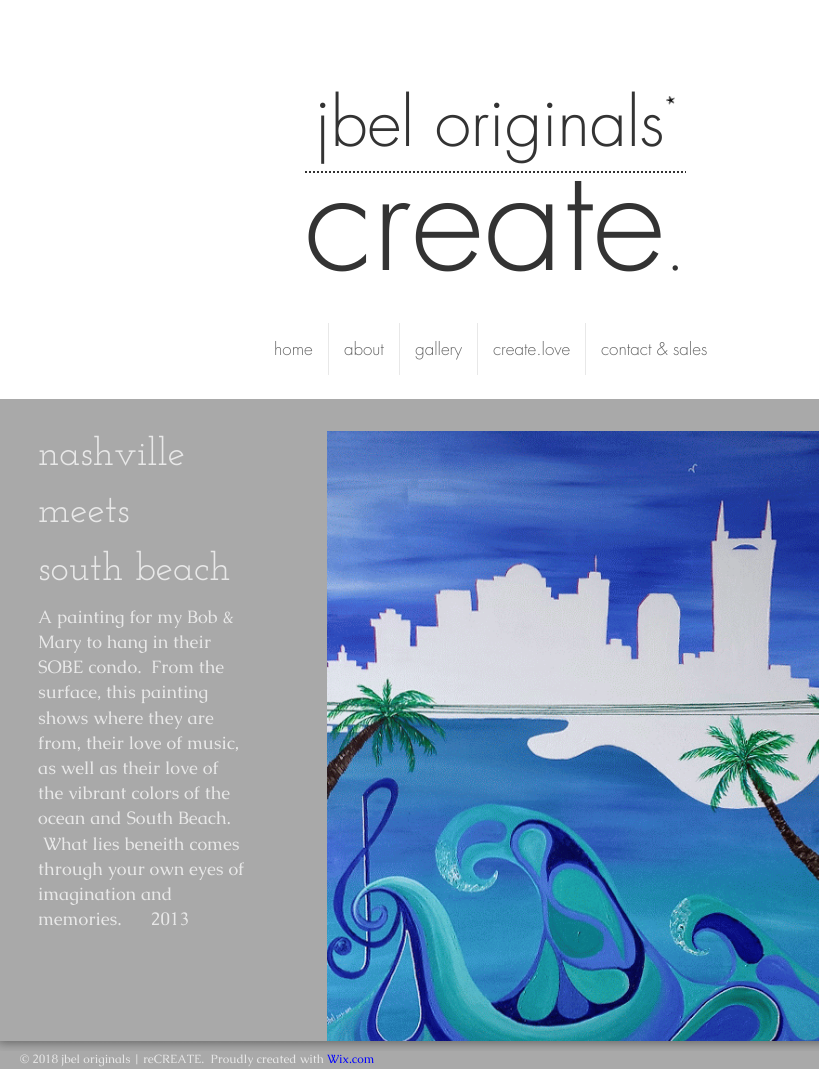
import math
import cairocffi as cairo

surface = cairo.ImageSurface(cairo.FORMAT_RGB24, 819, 1069)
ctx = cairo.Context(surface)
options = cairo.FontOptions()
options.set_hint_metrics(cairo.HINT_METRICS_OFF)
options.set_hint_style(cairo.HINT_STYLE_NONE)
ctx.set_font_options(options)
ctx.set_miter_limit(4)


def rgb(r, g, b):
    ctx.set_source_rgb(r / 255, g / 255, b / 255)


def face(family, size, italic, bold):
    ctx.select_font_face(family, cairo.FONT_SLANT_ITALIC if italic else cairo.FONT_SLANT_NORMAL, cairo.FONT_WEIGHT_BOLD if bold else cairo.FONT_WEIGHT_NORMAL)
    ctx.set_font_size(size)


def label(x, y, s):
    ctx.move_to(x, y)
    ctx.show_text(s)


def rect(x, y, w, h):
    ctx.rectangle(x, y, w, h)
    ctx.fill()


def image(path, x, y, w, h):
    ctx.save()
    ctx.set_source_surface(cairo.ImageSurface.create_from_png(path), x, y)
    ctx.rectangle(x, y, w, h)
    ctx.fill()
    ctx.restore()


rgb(169, 169, 169)
ctx.paint()
rgb(255, 255, 255)
rect(0, 0, 819, 399)
face('futura Light', 66, 0, 0)
rgb(51, 51, 51)
label(315, 146, 'jbel originals')
image('image0.png', 666, 96, 9, 9)
ctx.new_path()
ctx.move_to(305, 172)
ctx.line_to(686, 172)
ctx.set_dash([2, 2])
ctx.stroke()
face('futura Light', 142, 0, 0)
label(304, 270, 'create')
face('futura Light', 66, 0, 0)
label(665, 270, '.')
face('futura Light', 17, 0, 0)
rgb(102, 102, 102)
label(274, 355, 'home')
rgb(232, 232, 232)
rect(328, 323, 1, 52)
rgb(102, 102, 102)
label(344, 355, 'about')
rgb(232, 232, 232)
rect(399, 323, 1, 52)
rgb(102, 102, 102)
label(415, 355, 'gallery')
rgb(232, 232, 232)
rect(477, 323, 1, 52)
rgb(102, 102, 102)
label(493, 355, 'create.love')
rgb(232, 232, 232)
rect(585, 323, 1, 52)
rgb(102, 102, 102)
label(601, 355, 'contact & sales')
face('Josefin Slab', 39, 0, 0)
rgb(232, 232, 232)
label(38, 465, 'nashville')
label(38, 522, 'meets')
label(38, 580, 'south beach')
image('image1.png', 327, 431, 492, 610)
face('Caudex', 18, 0, 0)
label(38, 623, 'A painting for my Bob &')
label(38, 648, 'Mary to hang in their')
label(38, 673, 'SOBE condo.  From the')
label(38, 698, 'surface, this painting')
label(38, 724, 'shows where they are')
label(38, 749, 'from, their love of music,')
label(38, 774, 'as well as their love of')
label(38, 799, 'the vibrant colors of the')
label(38, 824, 'ocean and South Beach.')
label(43, 850, 'What lies beneith comes')
label(38, 875, 'through your own eyes of')
label(38, 900, 'imagination and')
label(38, 925, 'memories.      2013')
image('image2.png', 0, 1041, 35, 10)
image('image3.png', 35, 1041, 784, 10)
face('Caudex', 12, 0, 0)
label(20, 1063, '© 2018 jbel originals | reCREATE.  Proudly created with')
rgb(0, 0, 255)
label(327, 1063, 'Wix.com')
surface.write_to_png('render.png')
